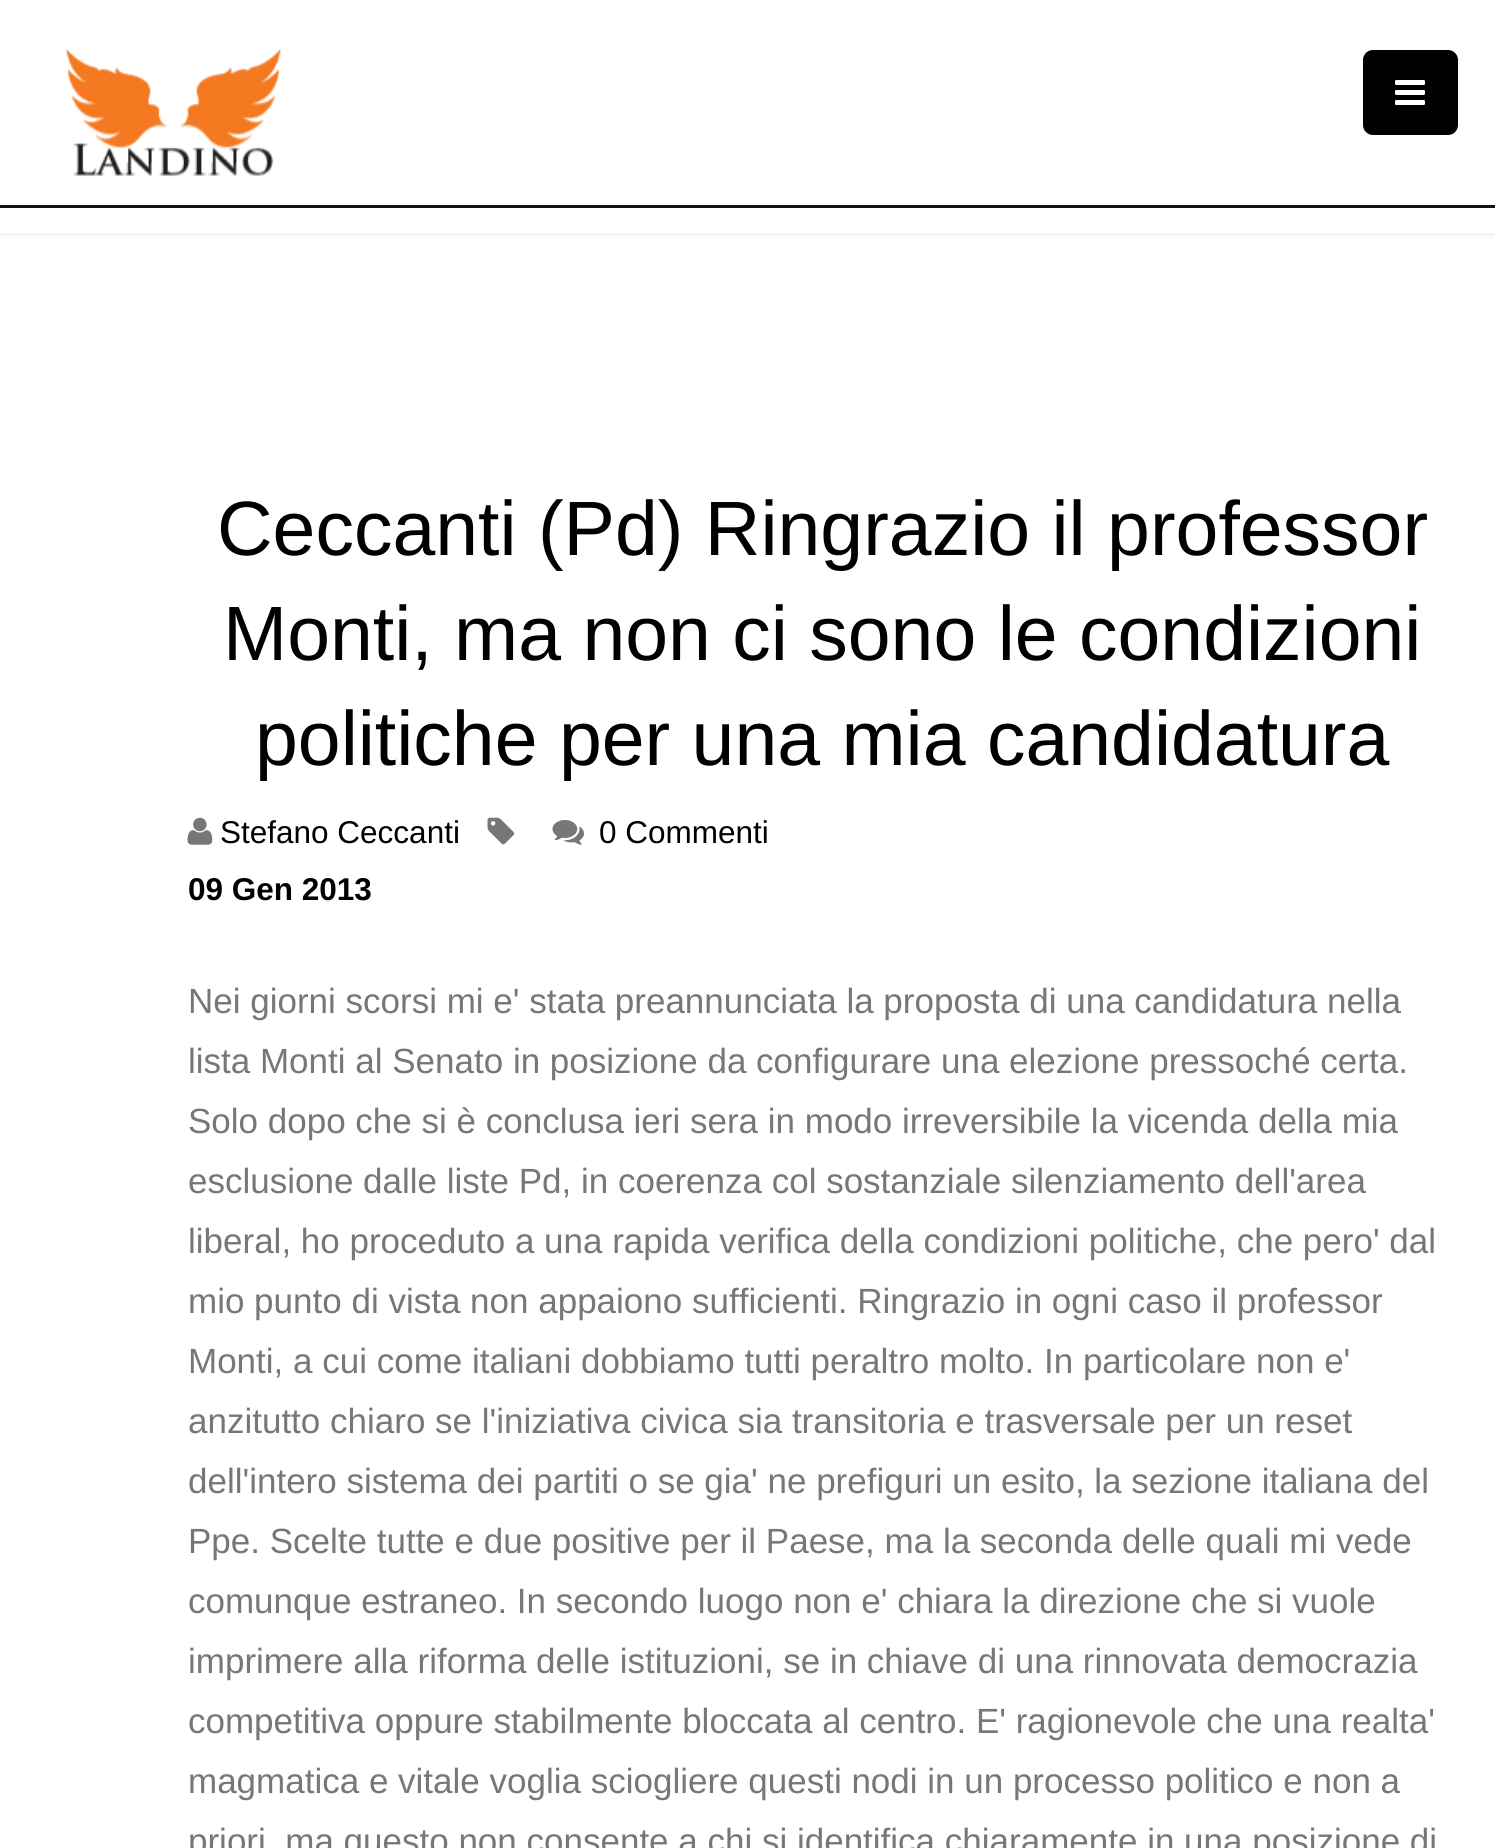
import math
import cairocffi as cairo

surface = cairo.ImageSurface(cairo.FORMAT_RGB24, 1495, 1848)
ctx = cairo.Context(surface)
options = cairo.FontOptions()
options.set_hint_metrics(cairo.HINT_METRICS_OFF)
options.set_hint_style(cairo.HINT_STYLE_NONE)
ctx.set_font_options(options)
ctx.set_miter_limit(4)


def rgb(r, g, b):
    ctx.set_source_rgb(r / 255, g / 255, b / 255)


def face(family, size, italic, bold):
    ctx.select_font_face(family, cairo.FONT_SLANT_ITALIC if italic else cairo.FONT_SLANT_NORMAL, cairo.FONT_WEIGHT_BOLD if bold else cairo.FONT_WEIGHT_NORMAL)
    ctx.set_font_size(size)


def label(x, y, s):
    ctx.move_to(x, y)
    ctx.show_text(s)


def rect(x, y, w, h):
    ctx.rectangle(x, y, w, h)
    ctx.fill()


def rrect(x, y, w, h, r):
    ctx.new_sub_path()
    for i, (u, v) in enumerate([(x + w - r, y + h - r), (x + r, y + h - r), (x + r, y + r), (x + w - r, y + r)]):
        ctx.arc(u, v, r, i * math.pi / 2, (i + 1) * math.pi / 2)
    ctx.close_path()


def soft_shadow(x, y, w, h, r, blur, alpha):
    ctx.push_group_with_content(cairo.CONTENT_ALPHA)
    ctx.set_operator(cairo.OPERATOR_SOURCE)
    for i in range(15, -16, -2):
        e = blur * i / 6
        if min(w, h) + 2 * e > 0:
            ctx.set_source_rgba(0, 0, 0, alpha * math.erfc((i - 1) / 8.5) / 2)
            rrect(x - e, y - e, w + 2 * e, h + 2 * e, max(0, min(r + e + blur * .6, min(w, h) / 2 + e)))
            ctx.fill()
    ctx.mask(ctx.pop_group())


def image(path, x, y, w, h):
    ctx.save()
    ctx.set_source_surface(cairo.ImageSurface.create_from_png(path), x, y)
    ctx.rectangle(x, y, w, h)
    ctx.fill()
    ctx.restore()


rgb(255, 255, 255)
ctx.paint()
rgb(0, 0, 0)
soft_shadow(0, 0, 1495, 233, 0, 4, 0.1)
rgb(255, 255, 255)
rect(0, 0, 1495, 233)
rgb(18, 18, 18)
rect(0, 205, 1495, 3)
image('image0.png', 66, 49, 215, 128)
rgb(0, 0, 0)
rrect(1363, 50, 95, 85, 10)
ctx.fill()
image('image1.png', 1395, 80, 30, 25)
face('Liberation Sans', 77, 0, 0)
label(217, 555, 'Ceccanti (Pd) Ringrazio il professor')
label(223, 660, 'Monti, ma non ci sono le condizioni')
label(255, 765, 'politiche per una mia candidatura')
image('image2.png', 187, 817, 26, 28)
face('Liberation Sans', 31.5, 0, 0)
label(220, 843, 'Stefano Ceccanti')
image('image3.png', 487, 817, 28, 28)
image('image4.png', 552, 820, 32, 25)
label(599, 843, '0 Commenti')
face('Liberation Sans', 31.5, 0, 1)
label(188, 900, '09 Gen 2013')
face('Liberation Sans', 35, 0, 0)
rgb(119, 119, 119)
label(188, 1013, 'Nei giorni scorsi mi e\' stata preannunciata la proposta di una candidatura nella')
label(188, 1073, 'lista Monti al Senato in posizione da configurare una elezione pressoché certa.')
label(188, 1133, 'Solo dopo che si è conclusa ieri sera in modo irreversibile la vicenda della mia')
label(188, 1193, 'esclusione dalle liste Pd, in coerenza col sostanziale silenziamento dell\'area')
label(188, 1253, 'liberal, ho proceduto a una rapida verifica della condizioni politiche, che pero\' dal')
label(188, 1313, 'mio punto di vista non appaiono sufficienti. Ringrazio in ogni caso il professor')
label(188, 1373, 'Monti, a cui come italiani dobbiamo tutti peraltro molto. In particolare non e\'')
label(188, 1433, 'anzitutto chiaro se l\'iniziativa civica sia transitoria e trasversale per un reset')
label(188, 1493, 'dell\'intero sistema dei partiti o se gia\' ne prefiguri un esito, la sezione italiana del')
label(188, 1553, 'Ppe. Scelte tutte e due positive per il Paese, ma la seconda delle quali mi vede')
label(188, 1613, 'comunque estraneo. In secondo luogo non e\' chiara la direzione che si vuole')
label(188, 1673, 'imprimere alla riforma delle istituzioni, se in chiave di una rinnovata democrazia')
label(188, 1733, 'competitiva oppure stabilmente bloccata al centro. E\' ragionevole che una realta\'')
label(188, 1793, 'magmatica e vitale voglia sciogliere questi nodi in un processo politico e non a')
label(188, 1853, 'priori, ma questo non consente a chi si identifica chiaramente in una posizione di')
surface.write_to_png('render.png')
